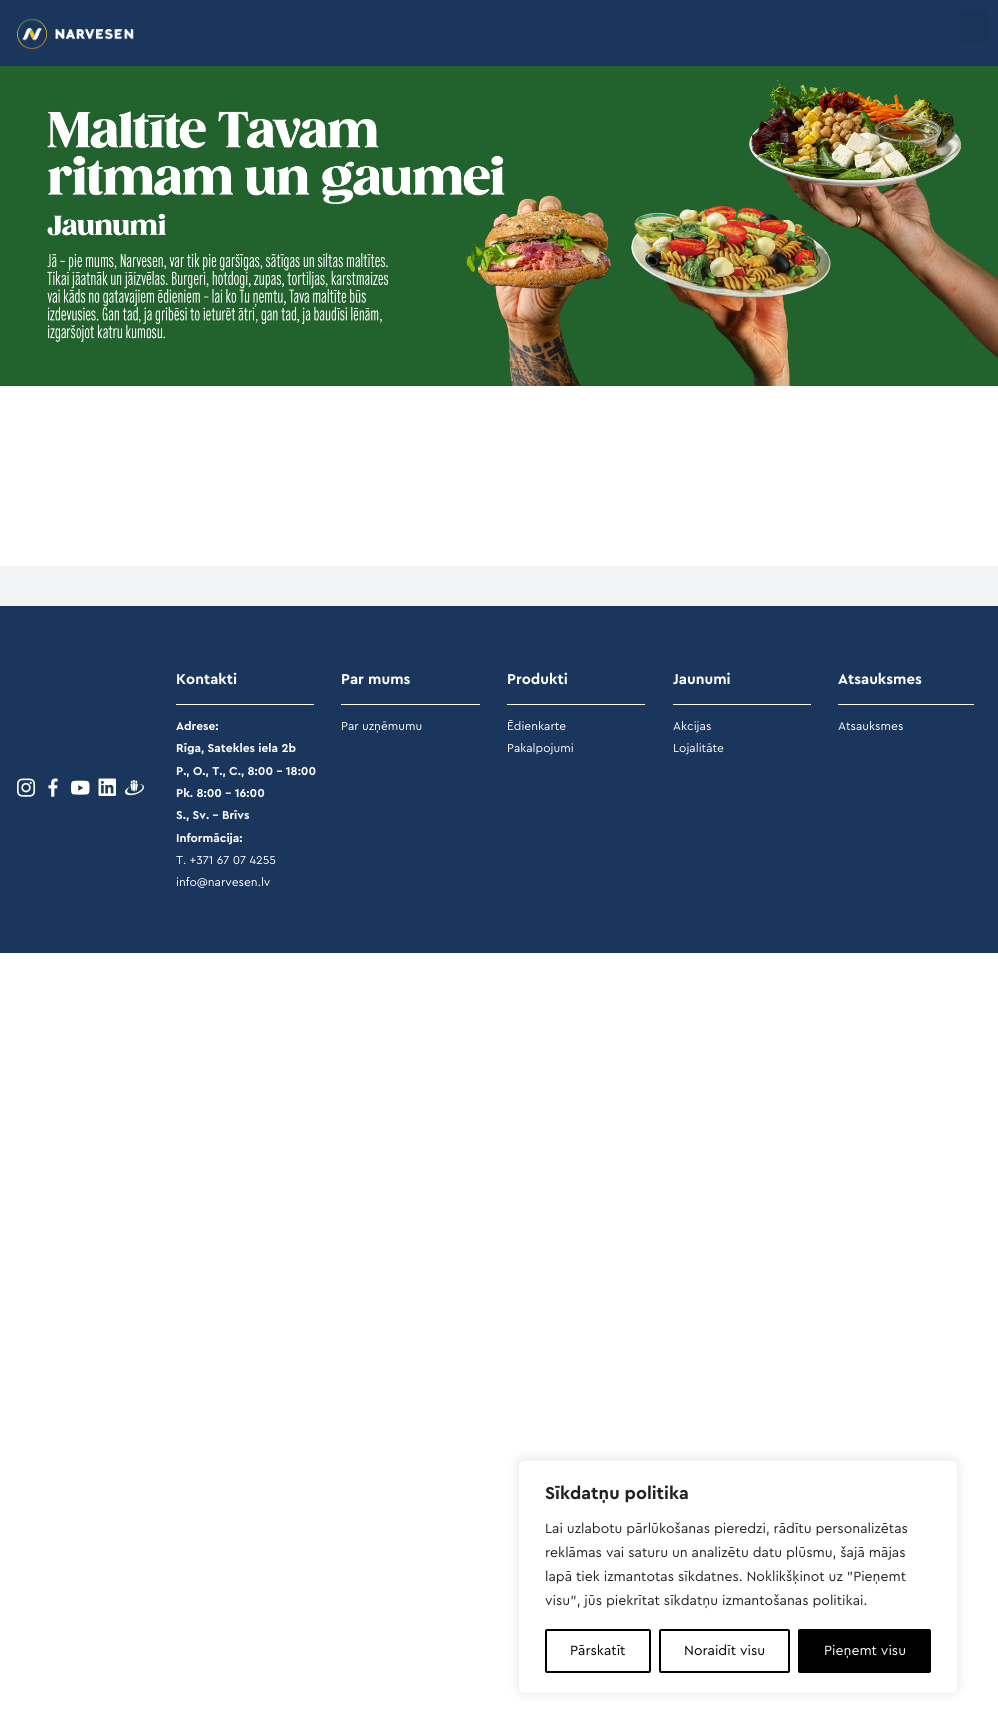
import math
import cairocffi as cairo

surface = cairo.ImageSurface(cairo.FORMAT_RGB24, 998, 1734)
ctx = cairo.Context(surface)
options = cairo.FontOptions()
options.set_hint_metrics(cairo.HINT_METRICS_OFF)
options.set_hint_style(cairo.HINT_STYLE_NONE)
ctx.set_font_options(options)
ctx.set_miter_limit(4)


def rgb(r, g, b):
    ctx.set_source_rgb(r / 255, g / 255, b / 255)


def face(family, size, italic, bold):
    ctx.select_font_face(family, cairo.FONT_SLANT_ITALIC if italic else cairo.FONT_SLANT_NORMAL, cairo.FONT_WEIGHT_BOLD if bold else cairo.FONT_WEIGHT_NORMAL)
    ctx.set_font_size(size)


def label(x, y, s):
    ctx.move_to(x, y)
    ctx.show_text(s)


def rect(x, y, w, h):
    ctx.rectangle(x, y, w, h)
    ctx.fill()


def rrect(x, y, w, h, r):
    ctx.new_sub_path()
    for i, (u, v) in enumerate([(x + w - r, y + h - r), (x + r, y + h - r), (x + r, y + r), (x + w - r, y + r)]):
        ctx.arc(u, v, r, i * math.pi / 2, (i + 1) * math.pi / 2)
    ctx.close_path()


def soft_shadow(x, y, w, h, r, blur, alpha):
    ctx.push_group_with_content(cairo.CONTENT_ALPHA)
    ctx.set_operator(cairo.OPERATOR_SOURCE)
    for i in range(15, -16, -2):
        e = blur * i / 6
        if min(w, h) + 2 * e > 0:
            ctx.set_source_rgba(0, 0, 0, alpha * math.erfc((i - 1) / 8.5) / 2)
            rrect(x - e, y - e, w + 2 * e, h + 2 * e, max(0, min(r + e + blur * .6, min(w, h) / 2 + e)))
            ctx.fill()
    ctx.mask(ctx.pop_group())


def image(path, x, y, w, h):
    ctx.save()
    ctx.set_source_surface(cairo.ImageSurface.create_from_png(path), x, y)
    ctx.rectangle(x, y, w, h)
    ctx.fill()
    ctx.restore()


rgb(255, 255, 255)
ctx.paint()
rgb(27, 54, 93)
rect(0, 0, 998, 66)
image('image0.png', 17, 18, 117, 31)
rgb(26, 51, 88)
rrect(960, 10, 28, 33, 3)
ctx.fill()
image('image1.png', 0, 66, 998, 320)
rgb(242, 244, 246)
rect(0, 566, 998, 40)
rgb(27, 54, 93)
rect(0, 606, 998, 347)
face('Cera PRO', 15, 0, 1)
rgb(255, 255, 255)
label(176, 684, 'Kontakti')
rect(176, 704, 138, 1)
face('Cera PRO', 12, 0, 1)
label(176, 730, 'Adrese:')
label(176, 752, 'Rīga, Satekles iela 2b')
label(176, 775, 'P., O., T., C., 8:00 – 18:00')
label(176, 797, 'Pk. 8:00 – 16:00')
label(176, 819, 'S., Sv. – Brīvs')
label(176, 842, 'Informācija:')
face('Cera PRO', 12, 0, 0)
label(176, 864, 'T. +371 67 07 4255')
label(176, 886, 'info@narvesen.lv')
face('Cera PRO', 15, 0, 1)
label(341, 684, 'Par mums')
rect(341, 704, 139, 1)
face('Cera PRO', 12, 0, 0)
label(341, 730, 'Par uzņēmumu')
face('Cera PRO', 15, 0, 1)
label(507, 684, 'Produkti')
rect(507, 704, 138, 1)
face('Cera PRO', 12, 0, 0)
label(507, 730, 'Ēdienkarte')
label(507, 752, 'Pakalpojumi')
face('Cera PRO', 15, 0, 1)
label(673, 684, 'Jaunumi')
rect(673, 704, 138, 1)
face('Cera PRO', 12, 0, 0)
label(673, 730, 'Akcijas')
label(673, 752, 'Lojalitāte')
face('Cera PRO', 15, 0, 1)
label(838, 684, 'Atsauksmes')
rect(838, 704, 136, 1)
face('Cera PRO', 12, 0, 0)
label(838, 730, 'Atsauksmes')
image('image2.png', 17, 778, 19, 19)
image('image3.png', 48, 778, 10, 19)
image('image4.png', 71, 780, 19, 15)
image('image5.png', 98, 778, 18, 18)
image('image6.png', 125, 779, 19, 17)
rgb(172, 171, 171)
soft_shadow(518, 1459, 440, 234, 6, 5, 0.3)
rgb(255, 255, 255)
rrect(518.5, 1460.5, 439, 233, 5.5)
ctx.fill_preserve()
rgb(244, 244, 244)
ctx.set_line_width(1)
ctx.stroke()
face('Cera PRO', 18, 0, 1)
rgb(33, 33, 33)
label(545, 1499, 'Sīkdatņu politika')
face('Cera PRO', 14, 0, 0)
label(545, 1533, 'Lai uzlabotu pārlūkošanas pieredzi, rādītu personalizētas')
label(545, 1557, 'reklāmas vai saturu un analizētu datu plūsmu, šajā mājas')
label(545, 1581, 'lapā tiek izmantotas sīkdatnes. Noklikšķinot uz "Pieņemt')
label(545, 1605, 'visu", jūs piekrītat sīkdatņu izmantošanas politikai.')
rrect(546, 1630, 104, 42, 1)
rgb(0, 0, 0)
ctx.set_line_width(2)
ctx.stroke()
label(570, 1655, 'Pārskatīt')
rrect(660, 1630, 129, 42, 1)
ctx.stroke()
label(684, 1655, 'Noraidīt visu')
rrect(799, 1630, 131, 42, 1)
ctx.fill_preserve()
ctx.stroke()
rgb(255, 255, 255)
label(824, 1655, 'Pieņemt visu')
surface.write_to_png('render.png')
